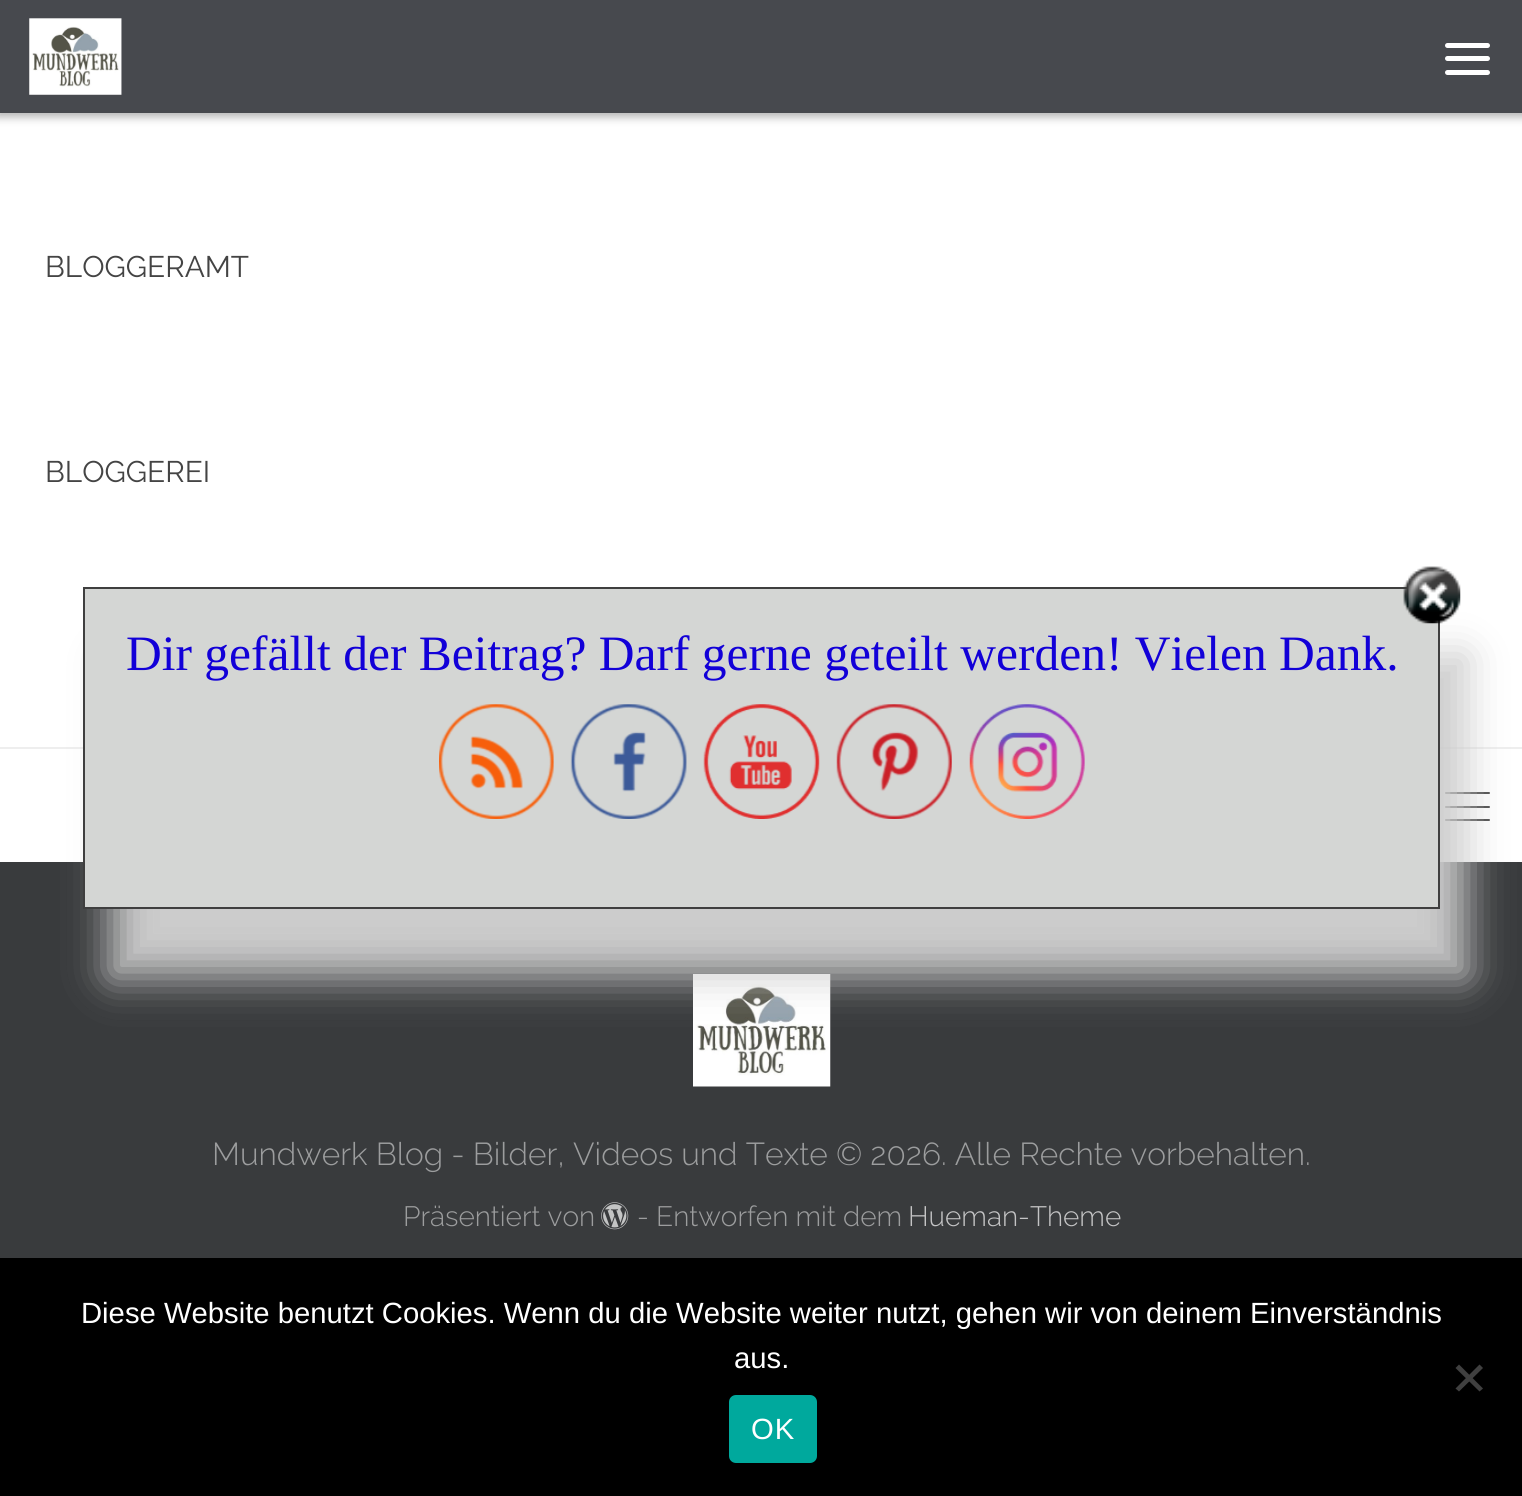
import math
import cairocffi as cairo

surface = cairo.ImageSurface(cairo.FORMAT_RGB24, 1522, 1496)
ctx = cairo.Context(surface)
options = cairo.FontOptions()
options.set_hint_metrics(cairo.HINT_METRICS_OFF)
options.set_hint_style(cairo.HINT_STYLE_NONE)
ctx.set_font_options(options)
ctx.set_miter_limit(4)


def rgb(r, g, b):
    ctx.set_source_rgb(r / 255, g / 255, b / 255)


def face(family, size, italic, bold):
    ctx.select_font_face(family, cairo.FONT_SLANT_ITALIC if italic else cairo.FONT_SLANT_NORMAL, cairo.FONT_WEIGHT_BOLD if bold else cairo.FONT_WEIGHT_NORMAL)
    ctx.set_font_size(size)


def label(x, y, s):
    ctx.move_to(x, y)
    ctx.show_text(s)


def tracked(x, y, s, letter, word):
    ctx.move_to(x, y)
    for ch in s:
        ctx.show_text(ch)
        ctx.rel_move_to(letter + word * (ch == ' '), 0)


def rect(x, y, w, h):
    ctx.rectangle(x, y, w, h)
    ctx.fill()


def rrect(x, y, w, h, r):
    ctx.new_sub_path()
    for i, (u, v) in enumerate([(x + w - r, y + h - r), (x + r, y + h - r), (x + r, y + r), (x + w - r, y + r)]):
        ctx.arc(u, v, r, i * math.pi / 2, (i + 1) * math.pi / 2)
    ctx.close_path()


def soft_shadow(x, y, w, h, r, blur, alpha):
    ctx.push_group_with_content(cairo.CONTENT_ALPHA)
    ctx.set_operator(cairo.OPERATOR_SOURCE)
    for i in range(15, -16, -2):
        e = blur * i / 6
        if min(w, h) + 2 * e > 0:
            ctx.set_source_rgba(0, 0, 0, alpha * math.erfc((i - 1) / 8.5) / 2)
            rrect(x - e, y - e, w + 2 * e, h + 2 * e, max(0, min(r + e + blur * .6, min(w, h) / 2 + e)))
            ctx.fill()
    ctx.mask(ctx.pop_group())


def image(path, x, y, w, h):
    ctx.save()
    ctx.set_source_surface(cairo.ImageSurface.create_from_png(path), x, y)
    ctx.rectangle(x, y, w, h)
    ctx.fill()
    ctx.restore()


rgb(255, 255, 255)
ctx.paint()
ctx.save()
ctx.set_fill_rule(cairo.FILL_RULE_EVEN_ODD)
ctx.new_path()
ctx.move_to(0, 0)
ctx.line_to(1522, 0)
ctx.line_to(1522, 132)
ctx.line_to(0, 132)
ctx.close_path()
ctx.move_to(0, 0)
ctx.line_to(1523, 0)
ctx.line_to(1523, 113)
ctx.line_to(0, 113)
ctx.close_path()
ctx.clip()
rgb(0, 0, 0)
soft_shadow(-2, 0, 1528, 117, 0, 4.5, 0.3)
ctx.restore()
ctx.set_source_rgba(0.2, 0.212, 0.231, 0.9)
rect(0, 0, 1522, 113)
image('image0.png', 29, 18, 93, 77)
rgb(255, 255, 255)
rrect(1445, 43, 45, 5, 2.5)
ctx.fill()
rrect(1445, 56, 45, 5, 2.5)
ctx.fill()
rrect(1445, 70, 45, 5, 2.5)
ctx.fill()
face('Raleway', 29.75, 0, 0)
rgb(68, 68, 68)
label(45, 277, 'BLOGGERAMT')
label(45, 482, 'BLOGGEREI')
rgb(238, 238, 238)
rect(0, 747, 1522, 2)
rgb(68, 68, 68)
rrect(1445, 792, 45, 2, 1)
ctx.fill()
rrect(1445, 806, 45, 2, 1)
ctx.fill()
rrect(1445, 819, 45, 2, 1)
ctx.fill()
rgb(57, 59, 61)
rect(0, 862, 1522, 396)
image('image1.png', 693, 974, 138, 113)
face('Raleway Light', 31.7, 0, 0)
rgb(156, 157, 158)
label(212, 1165, 'Mundwerk Blog - Bilder, Videos und Texte © 2026. Alle Rechte vorbehalten.')
face('Raleway Light', 28, 0, 0)
label(403, 1226, 'Präsentiert von')
image('image2.png', 601, 1202, 28, 28)
label(637, 1226, '- Entworfen mit dem')
rgb(196, 196, 197)
label(908, 1226, 'Hueman-Theme')
rgb(204, 204, 204)
soft_shadow(110, 655, 1357, 322, 0, 20, 1)
rgb(212, 214, 212)
ctx.rectangle(84, 588, 1355, 320)
ctx.fill_preserve()
rgb(63, 63, 63)
ctx.stroke()
image('image3.png', 1403, 566, 58, 58)
face('Liberation Serif', 49.5, 0, 0)
rgb(18, 0, 216)
label(126, 670, 'Dir gefällt der Beitrag? Darf gerne geteilt werden! Vielen Dank.')
image('image4.png', 439, 704, 115, 115)
image('image5.png', 570, 704, 117, 115)
image('image6.png', 703, 704, 117, 115)
image('image7.png', 836, 704, 116, 115)
image('image8.png', 969, 704, 116, 115)
rgb(0, 0, 0)
rect(0, 1258, 1522, 238)
face('Liberation Sans', 29.25, 0, 0)
rgb(255, 255, 255)
label(81, 1323, 'Diese Website benutzt Cookies. Wenn du die Website weiter nutzt, gehen wir von deinem Einverständnis')
label(734, 1368, 'aus.')
rgb(64, 64, 64)
ctx.new_path()
ctx.move_to(1479.5, 1364.5)
ctx.line_to(1483, 1368)
ctx.line_to(1459, 1391.5)
ctx.line_to(1455.5, 1388.5)
ctx.close_path()
ctx.fill()
ctx.new_path()
ctx.move_to(1455.5, 1368)
ctx.line_to(1459, 1364.5)
ctx.line_to(1483, 1388.5)
ctx.line_to(1479.5, 1391.5)
ctx.close_path()
ctx.fill()
rgb(0, 169, 157)
rrect(729, 1395, 88, 68, 7)
ctx.fill()
rgb(255, 255, 255)
tracked(751, 1439, 'OK', 1, 0)
surface.write_to_png('render.png')
